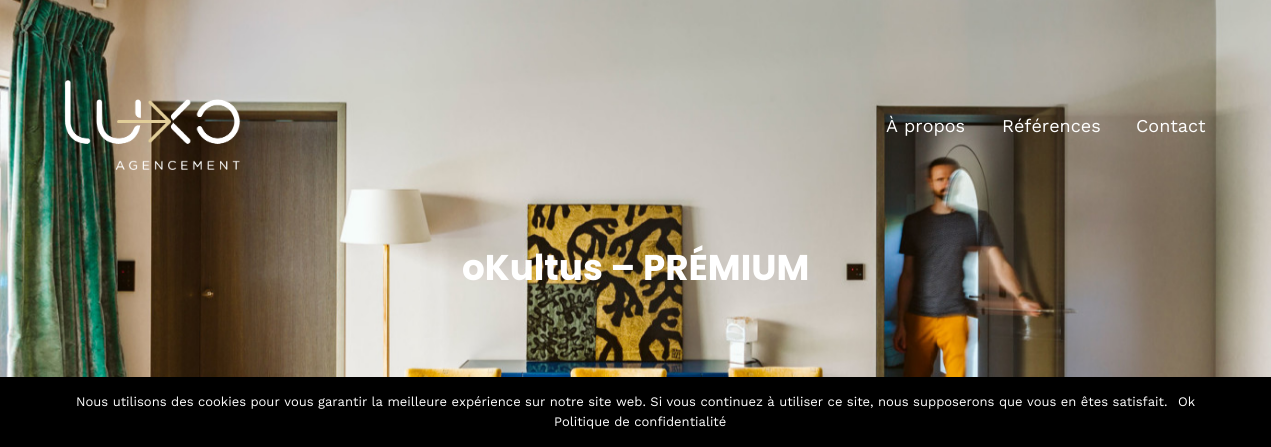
import math
import cairocffi as cairo

surface = cairo.ImageSurface(cairo.FORMAT_RGB24, 1271, 447)
ctx = cairo.Context(surface)
options = cairo.FontOptions()
options.set_hint_metrics(cairo.HINT_METRICS_OFF)
options.set_hint_style(cairo.HINT_STYLE_NONE)
ctx.set_font_options(options)
ctx.set_miter_limit(4)


def rgb(r, g, b):
    ctx.set_source_rgb(r / 255, g / 255, b / 255)


def face(family, size, italic, bold):
    ctx.select_font_face(family, cairo.FONT_SLANT_ITALIC if italic else cairo.FONT_SLANT_NORMAL, cairo.FONT_WEIGHT_BOLD if bold else cairo.FONT_WEIGHT_NORMAL)
    ctx.set_font_size(size)


def label(x, y, s):
    ctx.move_to(x, y)
    ctx.show_text(s)


def rect(x, y, w, h):
    ctx.rectangle(x, y, w, h)
    ctx.fill()


def image(path, x, y, w, h):
    ctx.save()
    ctx.set_source_surface(cairo.ImageSurface.create_from_png(path), x, y)
    ctx.rectangle(x, y, w, h)
    ctx.fill()
    ctx.restore()


rgb(255, 255, 255)
ctx.paint()
image('image0.png', 0, 0, 1271, 377)
image('image1.png', 65, 80, 175, 90)
face('Work Sans', 18, 0, 0)
rgb(255, 255, 255)
label(886, 132, 'À propos')
label(1002, 132, 'Références')
label(1136, 132, 'Contact')
face('Poppins', 35.75, 0, 1)
label(462, 280, 'oKultus – PRÉMIUM')
rgb(0, 0, 0)
rect(0, 377, 1271, 70)
face('Work Sans', 13, 0, 0)
rgb(255, 255, 255)
label(76, 406, 'Nous utilisons des cookies pour vous garantir la meilleure expérience sur notre site web. Si vous continuez à utiliser ce site, nous supposerons que vous en êtes satisfait.')
label(1178, 406, 'Ok')
label(554, 426, 'Politique de confidentialité')
surface.write_to_png('render.png')
